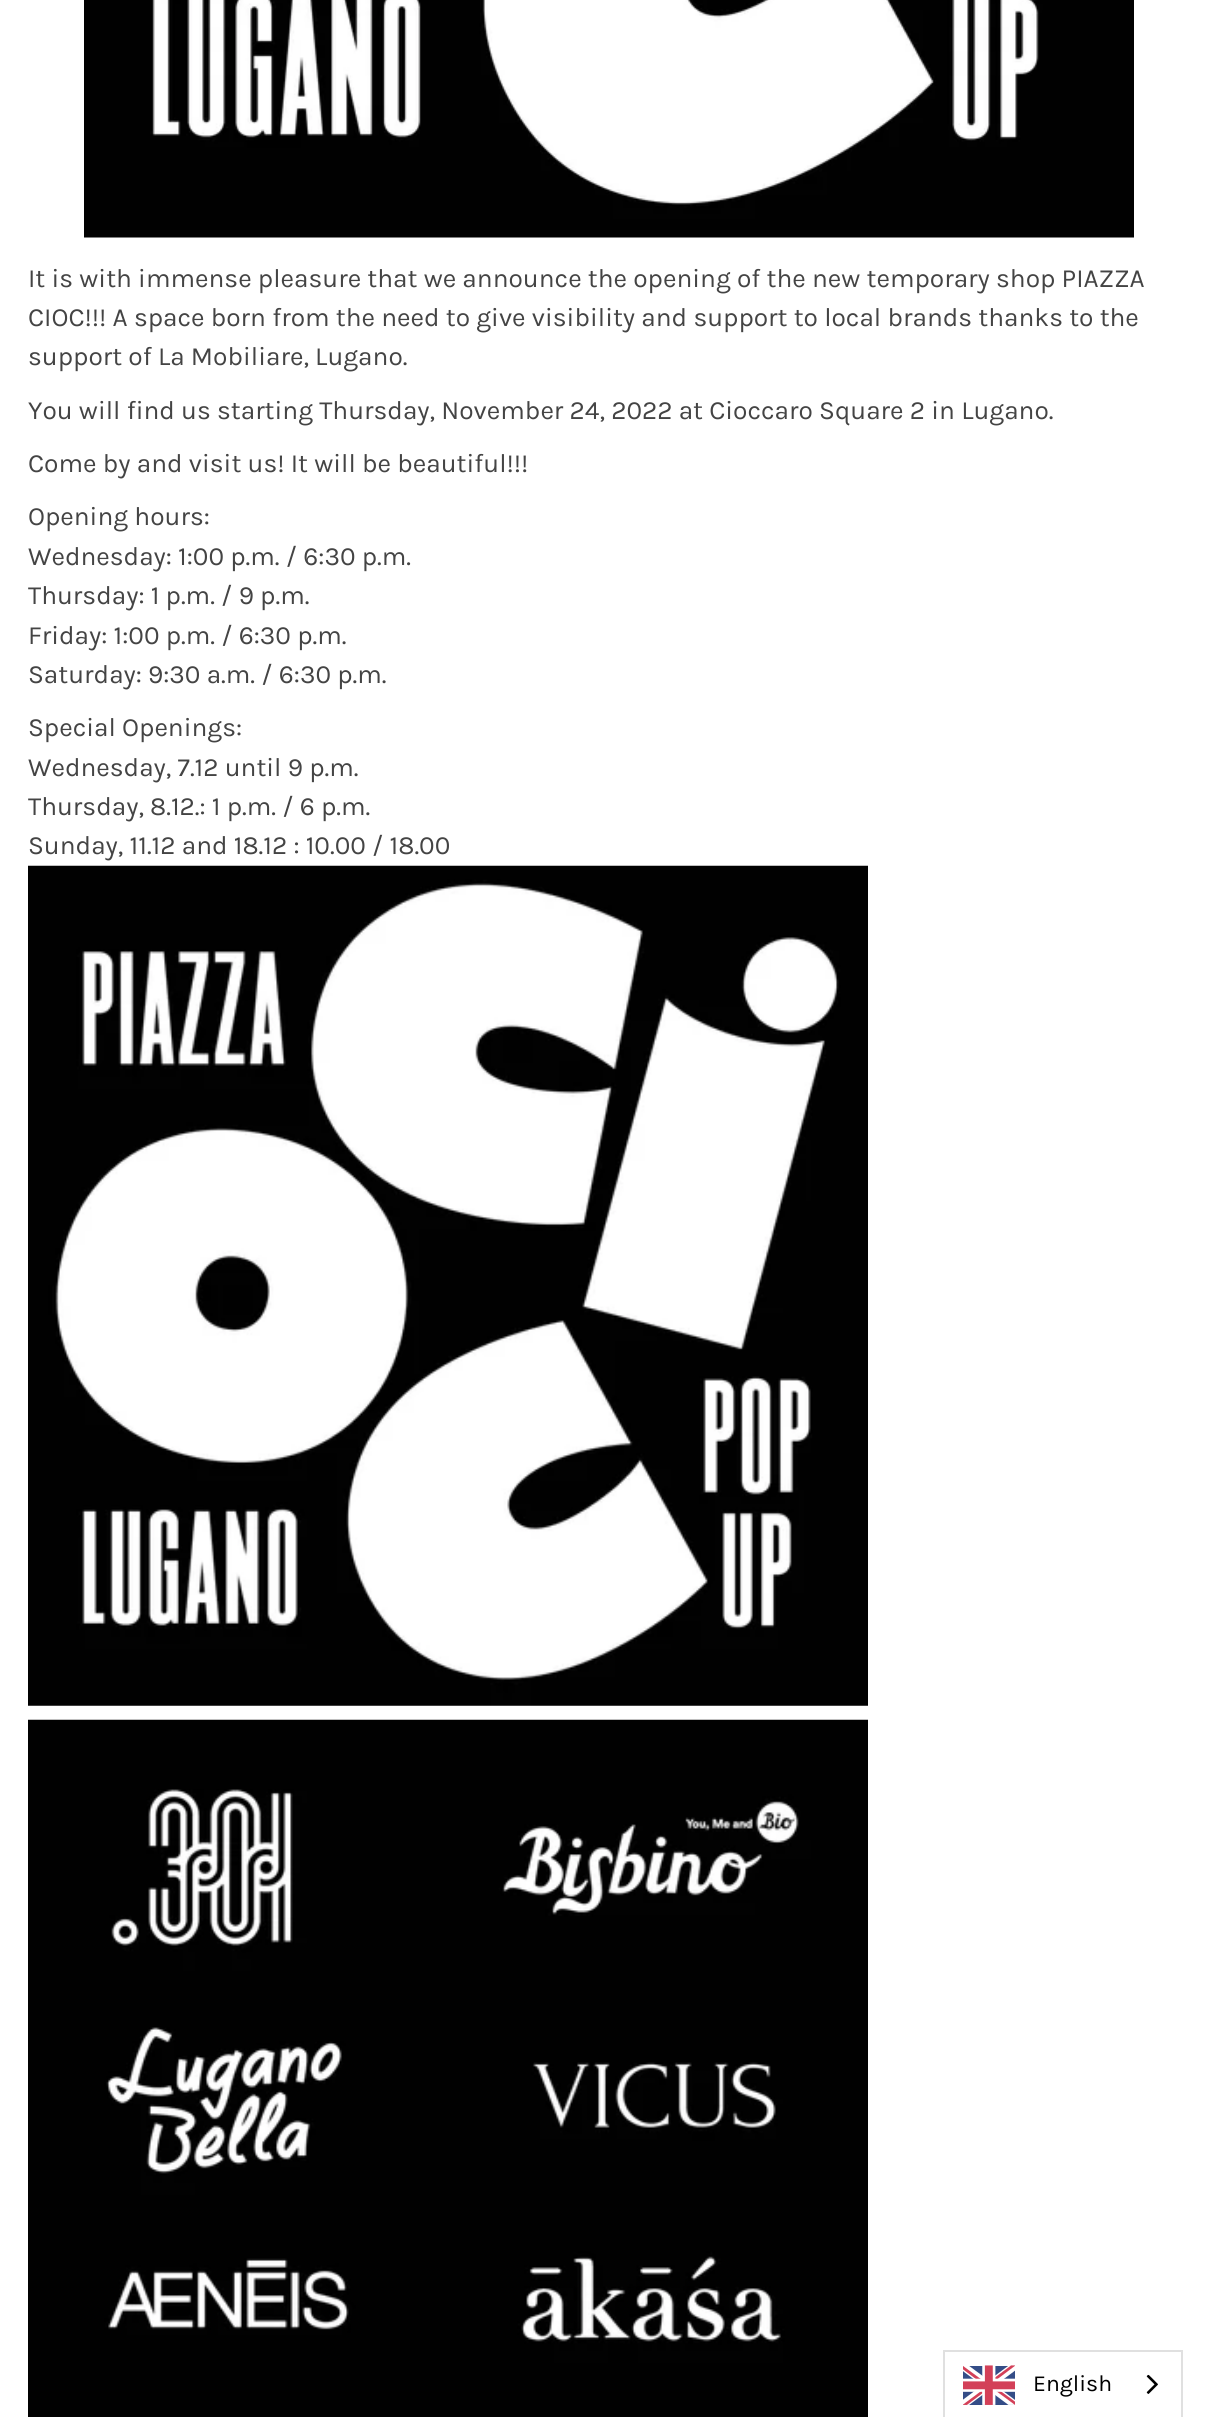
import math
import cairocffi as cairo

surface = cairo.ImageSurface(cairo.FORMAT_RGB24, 1218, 2417)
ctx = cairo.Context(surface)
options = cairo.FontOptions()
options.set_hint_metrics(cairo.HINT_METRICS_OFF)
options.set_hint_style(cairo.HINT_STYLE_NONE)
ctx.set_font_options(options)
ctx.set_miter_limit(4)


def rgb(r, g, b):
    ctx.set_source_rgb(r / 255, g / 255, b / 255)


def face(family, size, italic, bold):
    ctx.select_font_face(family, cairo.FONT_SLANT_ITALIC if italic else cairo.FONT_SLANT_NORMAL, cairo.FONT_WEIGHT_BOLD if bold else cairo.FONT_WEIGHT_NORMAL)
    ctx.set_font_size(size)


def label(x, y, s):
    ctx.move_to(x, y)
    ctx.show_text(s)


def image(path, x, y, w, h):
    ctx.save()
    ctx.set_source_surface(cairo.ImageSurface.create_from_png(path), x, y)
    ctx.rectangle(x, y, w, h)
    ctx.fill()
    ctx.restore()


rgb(255, 255, 255)
ctx.paint()
image('image0.png', 84, 0, 1050, 238)
face('Karla', 26.25, 0, 0)
rgb(68, 68, 68)
label(28, 287, 'It is with immense pleasure that we announce the opening of the new temporary shop PIAZZA')
label(28, 326, 'CIOC!!! A space born from the need to give visibility and support to local brands thanks to the')
label(28, 365, 'support of La Mobiliare, Lugano.')
label(28, 419, 'You will find us starting Thursday, November 24, 2022 at Cioccaro Square 2 in Lugano.')
label(28, 472, 'Come by and visit us! It will be beautiful!!!')
label(28, 525, 'Opening hours:')
label(28, 565, 'Wednesday: 1:00 p.m. / 6:30 p.m.')
label(28, 604, 'Thursday: 1 p.m. / 9 p.m.')
label(28, 644, 'Friday: 1:00 p.m. / 6:30 p.m.')
label(28, 683, 'Saturday: 9:30 a.m. / 6:30 p.m.')
label(28, 736, 'Special Openings:')
label(28, 776, 'Wednesday, 7.12 until 9 p.m.')
label(28, 815, 'Thursday, 8.12.: 1 p.m. / 6 p.m.')
label(28, 854, 'Sunday, 11.12 and 18.12 : 10.00 / 18.00')
image('image1.png', 28, 865, 840, 841)
image('image2.png', 28, 1719, 840, 698)
ctx.rectangle(944, 2351, 238, 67)
rgb(224, 224, 224)
ctx.stroke()
image('image3.png', 963, 2365, 52, 40)
face('Karla', 23, 0, 0)
rgb(0, 0, 0)
label(1033, 2391, 'English')
image('image4.png', 1146, 2374, 12, 20)
surface.write_to_png('render.png')
